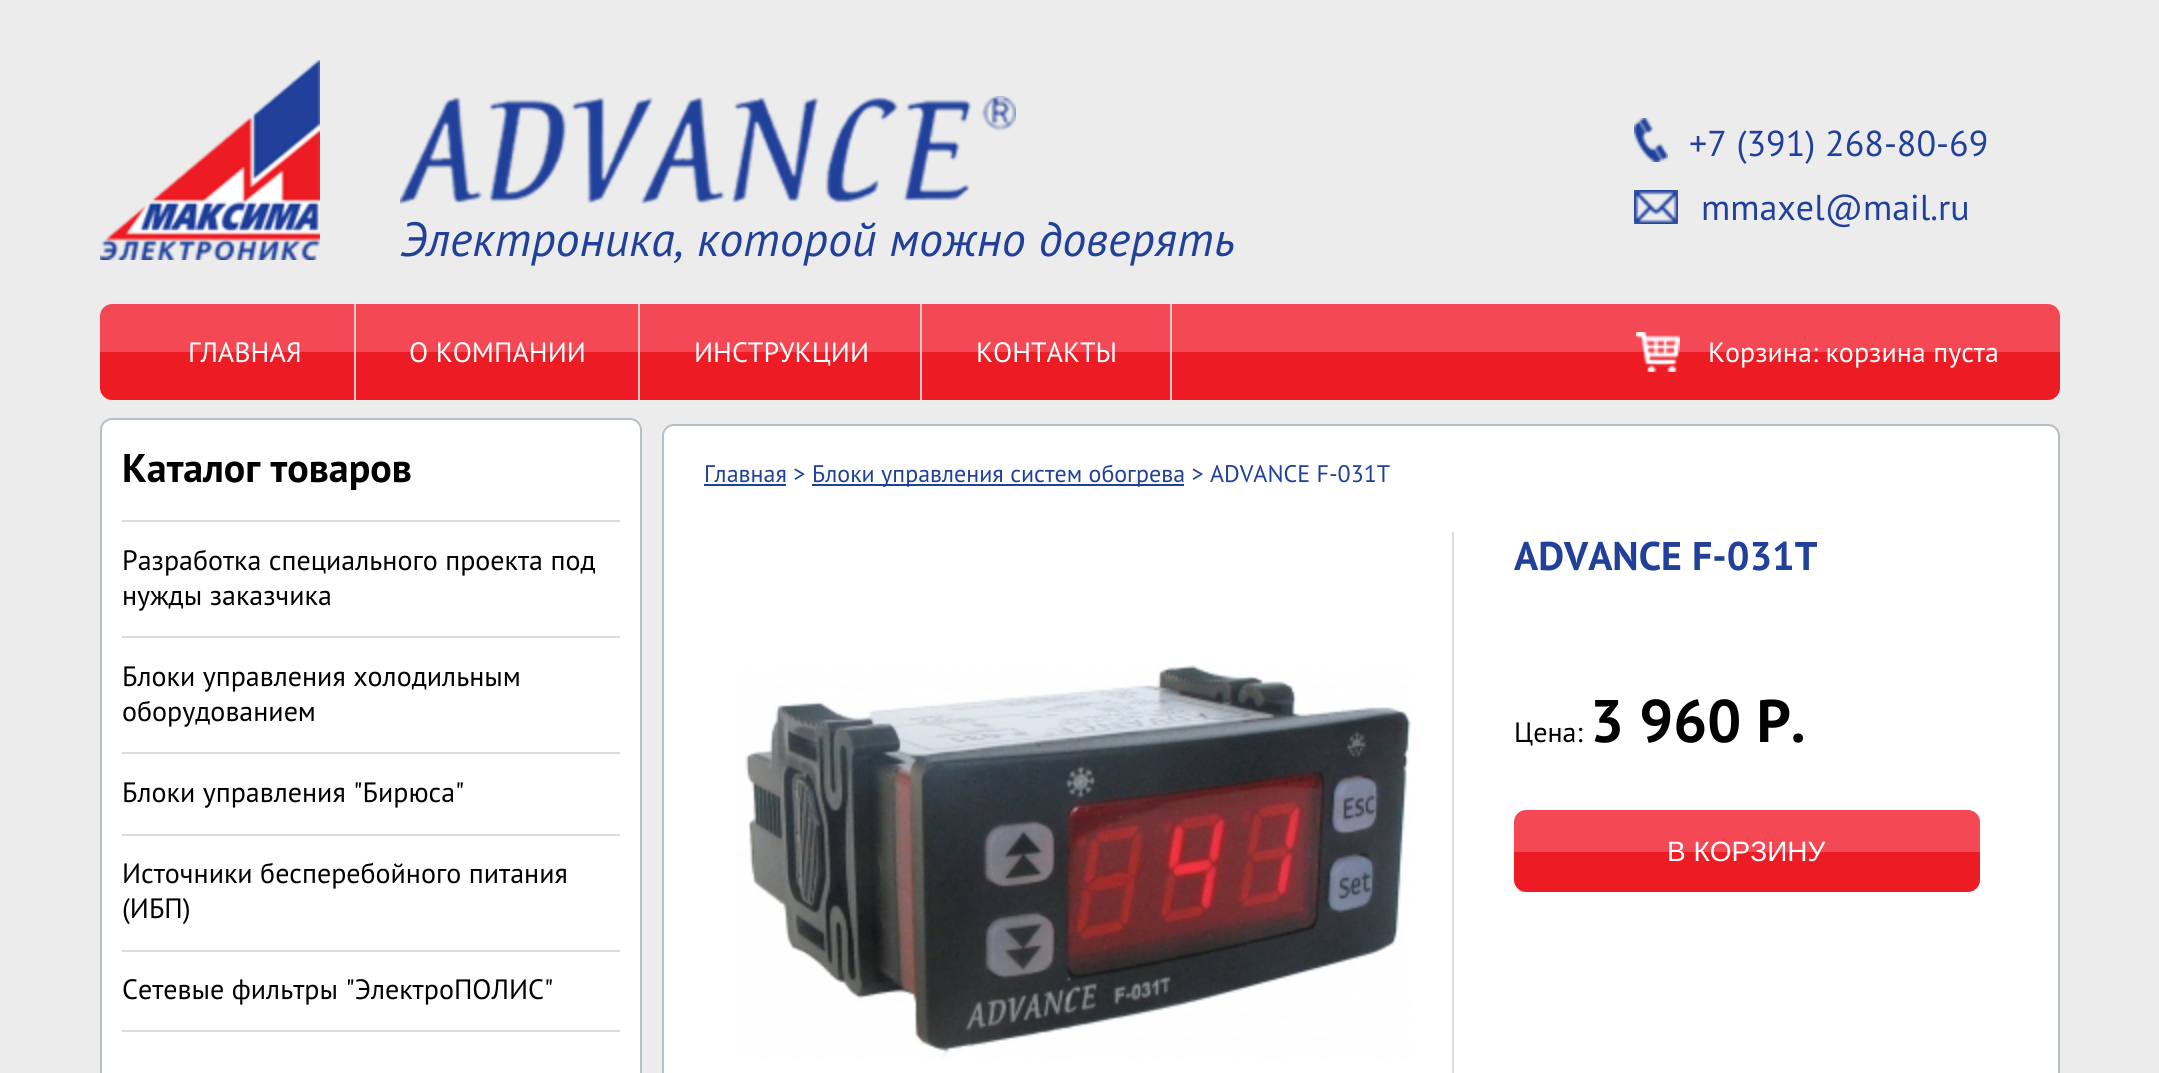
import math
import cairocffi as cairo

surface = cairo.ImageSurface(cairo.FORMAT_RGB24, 2159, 1073)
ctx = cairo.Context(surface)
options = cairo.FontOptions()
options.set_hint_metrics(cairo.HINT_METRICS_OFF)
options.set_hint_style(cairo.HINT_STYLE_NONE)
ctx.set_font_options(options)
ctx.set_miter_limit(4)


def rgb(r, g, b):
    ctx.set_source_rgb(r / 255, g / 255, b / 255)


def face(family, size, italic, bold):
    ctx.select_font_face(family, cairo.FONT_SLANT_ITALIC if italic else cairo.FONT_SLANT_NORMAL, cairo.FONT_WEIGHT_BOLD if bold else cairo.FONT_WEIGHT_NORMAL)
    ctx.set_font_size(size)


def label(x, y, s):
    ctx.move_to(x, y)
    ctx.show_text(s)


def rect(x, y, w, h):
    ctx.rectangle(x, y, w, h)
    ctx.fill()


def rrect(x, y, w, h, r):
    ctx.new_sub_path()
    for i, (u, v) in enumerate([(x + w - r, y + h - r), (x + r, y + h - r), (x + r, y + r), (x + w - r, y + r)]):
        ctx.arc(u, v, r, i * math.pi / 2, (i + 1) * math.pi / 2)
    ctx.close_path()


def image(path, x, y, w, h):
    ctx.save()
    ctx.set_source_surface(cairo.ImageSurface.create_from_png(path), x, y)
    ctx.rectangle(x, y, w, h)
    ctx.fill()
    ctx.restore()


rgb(236, 236, 236)
ctx.paint()
image('image0.png', 100, 60, 220, 200)
image('image1.png', 1634, 118, 34, 44)
face('PT Sans', 36, 0, 0)
rgb(32, 64, 154)
label(1689, 156, '+7 (391) 268-80-69')
image('image2.png', 1634, 190, 44, 34)
label(1701, 220, 'mmaxel@mail.ru')
image('image3.png', 400, 96, 616, 108)
face('PT Sans', 48, 1, 0)
label(400, 256, 'Электроника, которой можно доверять')
rgb(244, 72, 84)
ctx.new_path()
ctx.move_to(112, 304)
ctx.line_to(2048, 304)
ctx.curve_to(2054.5, 304, 2060, 309.5, 2060, 316)
ctx.line_to(2060, 352)
ctx.line_to(100, 352)
ctx.line_to(100, 316)
ctx.curve_to(100, 309.5, 105.5, 304, 112, 304)
ctx.close_path()
ctx.fill()
rgb(237, 28, 36)
ctx.new_path()
ctx.move_to(100, 352)
ctx.line_to(2060, 352)
ctx.line_to(2060, 388)
ctx.curve_to(2060, 394.5, 2054.5, 400, 2048, 400)
ctx.line_to(112, 400)
ctx.curve_to(105.5, 400, 100, 394.5, 100, 388)
ctx.close_path()
ctx.fill()
face('PT Sans', 28, 0, 0)
rgb(255, 255, 255)
label(188, 362, 'ГЛАВНАЯ')
rgb(252, 198, 202)
rect(354, 304, 2, 96)
rgb(255, 255, 255)
label(409, 362, 'О КОМПАНИИ')
rgb(252, 198, 202)
rect(638, 304, 2, 96)
rgb(255, 255, 255)
label(694, 362, 'ИНСТРУКЦИИ')
rgb(252, 198, 202)
rect(920, 304, 2, 96)
rgb(255, 255, 255)
label(976, 362, 'КОНТАКТЫ')
rgb(252, 198, 202)
rect(1170, 304, 2, 96)
image('image4.png', 1636, 332, 44, 40)
rgb(255, 255, 255)
label(1708, 362, 'Корзина: корзина пуста')
rrect(101, 419, 540, 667, 11)
ctx.fill_preserve()
rgb(182, 190, 198)
ctx.stroke()
face('PT Sans', 40, 0, 1)
rgb(0, 0, 0)
label(122, 482, 'Каталог товаров')
rgb(220, 220, 220)
rect(122, 520, 498, 2)
face('PT Sans', 28, 0, 0)
rgb(0, 0, 0)
label(122, 570, 'Разработка специального проекта под')
label(122, 605, 'нужды заказчика')
rgb(220, 220, 220)
rect(122, 636, 498, 2)
rgb(0, 0, 0)
label(122, 686, 'Блоки управления холодильным')
label(122, 721, 'оборудованием')
rgb(220, 220, 220)
rect(122, 752, 498, 2)
rgb(0, 0, 0)
label(122, 802, 'Блоки управления "Бирюса"')
rgb(220, 220, 220)
rect(122, 834, 498, 2)
rgb(0, 0, 0)
label(122, 883, 'Источники бесперебойного питания')
label(122, 918, '(ИБП)')
rgb(220, 220, 220)
rect(122, 950, 498, 2)
rgb(0, 0, 0)
label(122, 999, 'Сетевые фильтры "ЭлектроПОЛИС"')
rgb(220, 220, 220)
rect(122, 1030, 498, 2)
rgb(255, 255, 255)
rrect(663, 425, 1396, 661, 11)
ctx.fill_preserve()
rgb(182, 190, 198)
ctx.stroke()
face('PT Sans', 24, 0, 0)
rgb(32, 64, 154)
label(704, 482, 'Главная >')
rect(704, 484, 82, 2)
rect(812, 484, 372, 2)
label(812, 482, 'Блоки управления систем обогрева > ADVANCE F-031Т')
image('image5.png', 735, 665, 676, 394)
rgb(220, 220, 220)
rect(1452, 532, 2, 541)
face('PT Sans', 40, 0, 1)
rgb(32, 64, 154)
label(1514, 570, 'ADVANCE F-031Т')
face('PT Sans', 28, 0, 0)
rgb(0, 0, 0)
label(1514, 742, 'Цена:')
face('PT Sans', 60, 0, 1)
label(1590, 742, '3 960 Р.')
rgb(244, 72, 84)
ctx.new_path()
ctx.move_to(1526, 810)
ctx.line_to(1968, 810)
ctx.curve_to(1974.5, 810, 1980, 815.5, 1980, 822)
ctx.line_to(1980, 852)
ctx.line_to(1514, 852)
ctx.line_to(1514, 822)
ctx.curve_to(1514, 815.5, 1519.5, 810, 1526, 810)
ctx.close_path()
ctx.fill()
rgb(237, 28, 36)
ctx.new_path()
ctx.move_to(1514, 852)
ctx.line_to(1980, 852)
ctx.line_to(1980, 880)
ctx.curve_to(1980, 886.5, 1974.5, 892, 1968, 892)
ctx.line_to(1526, 892)
ctx.curve_to(1519.5, 892, 1514, 886.5, 1514, 880)
ctx.close_path()
ctx.fill()
face('Liberation Sans', 28, 0, 0)
rgb(255, 255, 255)
label(1667, 861, 'В КОРЗИНУ')
surface.write_to_png('render.png')
